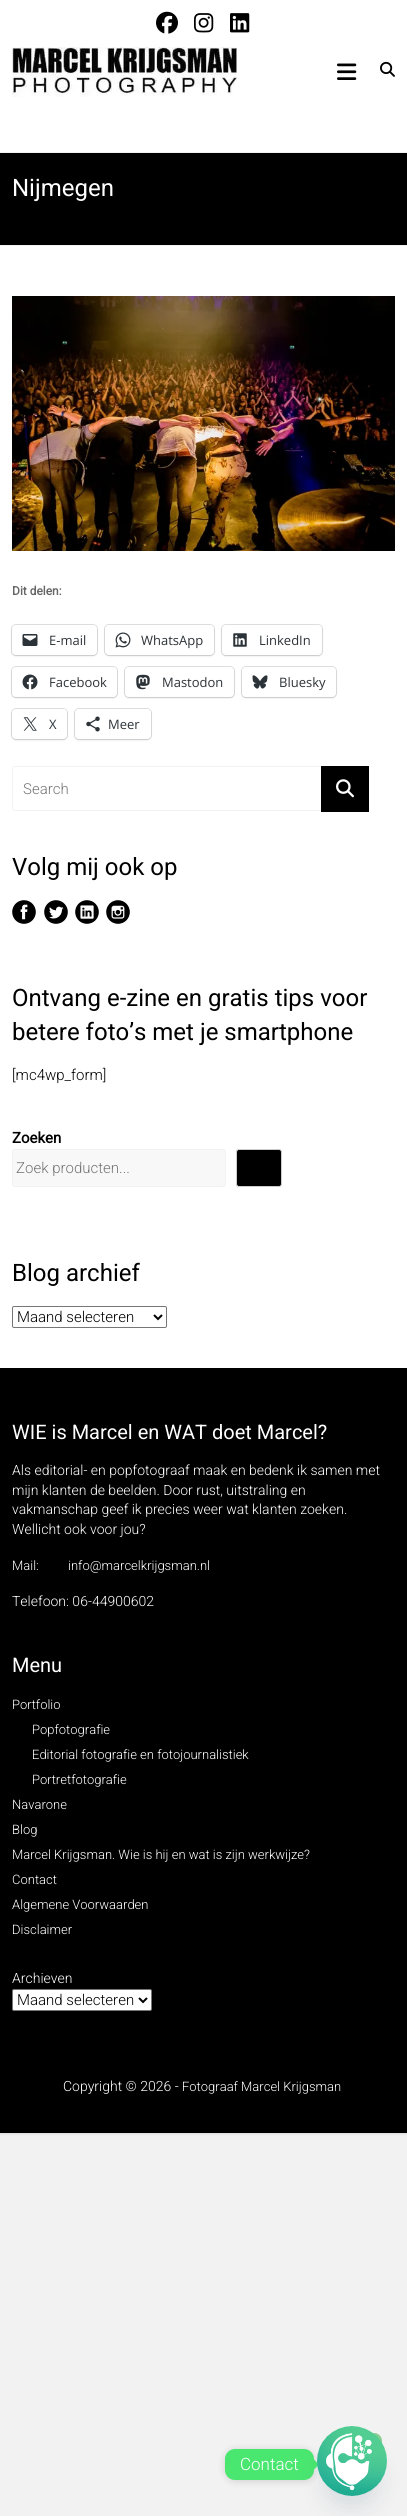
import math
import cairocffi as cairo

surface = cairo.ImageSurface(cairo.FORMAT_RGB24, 407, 2516)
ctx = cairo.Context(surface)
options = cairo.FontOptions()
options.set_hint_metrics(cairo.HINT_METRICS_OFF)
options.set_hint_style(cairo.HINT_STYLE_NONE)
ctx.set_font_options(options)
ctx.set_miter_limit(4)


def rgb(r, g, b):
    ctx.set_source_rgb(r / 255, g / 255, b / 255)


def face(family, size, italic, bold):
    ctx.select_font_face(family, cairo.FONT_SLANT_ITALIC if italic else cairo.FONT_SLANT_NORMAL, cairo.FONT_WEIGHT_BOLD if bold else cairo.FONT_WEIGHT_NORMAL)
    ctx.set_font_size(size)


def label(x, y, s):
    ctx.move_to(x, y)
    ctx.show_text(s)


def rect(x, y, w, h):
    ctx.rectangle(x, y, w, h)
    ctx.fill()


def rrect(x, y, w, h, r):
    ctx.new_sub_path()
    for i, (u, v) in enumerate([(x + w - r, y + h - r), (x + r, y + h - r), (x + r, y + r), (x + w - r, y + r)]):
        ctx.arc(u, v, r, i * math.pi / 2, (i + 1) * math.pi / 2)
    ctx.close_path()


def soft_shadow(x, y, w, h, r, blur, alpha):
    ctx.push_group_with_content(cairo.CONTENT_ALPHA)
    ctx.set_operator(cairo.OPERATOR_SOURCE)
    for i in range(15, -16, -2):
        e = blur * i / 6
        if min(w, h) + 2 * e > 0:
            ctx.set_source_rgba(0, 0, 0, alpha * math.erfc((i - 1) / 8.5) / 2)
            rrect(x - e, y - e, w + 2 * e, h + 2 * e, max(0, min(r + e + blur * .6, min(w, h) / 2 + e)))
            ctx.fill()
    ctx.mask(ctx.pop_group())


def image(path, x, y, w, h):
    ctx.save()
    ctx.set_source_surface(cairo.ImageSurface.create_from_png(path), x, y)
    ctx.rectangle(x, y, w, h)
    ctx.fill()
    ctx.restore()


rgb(242, 242, 242)
ctx.paint()
rgb(0, 0, 0)
soft_shadow(0, 1, 407, 2133, 0, 1, 0.1)
rgb(255, 255, 255)
rect(0, 246, 407, 1122)
rect(0, 0, 407, 152)
rgb(242, 242, 242)
rect(0, 152, 407, 1)
image('image0.png', 156, 11, 22, 23)
image('image1.png', 194, 13, 20, 20)
image('image2.png', 230, 13, 20, 20)
image('image3.png', 12, 47, 225, 50)
image('image4.png', 337, 63, 20, 17)
image('image5.png', 380, 61, 15, 16)
rgb(0, 0, 0)
rect(0, 153, 407, 92)
rgb(242, 242, 242)
rect(0, 245, 407, 1)
face('Roboto', 24, 0, 0)
rgb(255, 255, 255)
label(12, 196, 'Nijmegen')
image('image6.png', 12, 296, 383, 255)
face('Roboto', 12, 0, 1)
rgb(102, 102, 102)
label(12, 595, 'Dit delen:')
rrect(11.5, 624.5, 86, 31, 4.5)
rgb(224, 224, 224)
ctx.set_line_width(1)
ctx.stroke()
rgb(0, 0, 0)
soft_shadow(12, 626, 85, 30, 4, 1, 0.12)
rgb(255, 255, 255)
rrect(12, 625, 85, 30, 4)
ctx.fill()
image('image7.png', 22, 634, 16, 12)
face('Open Sans', 13, 0, 0)
rgb(44, 51, 56)
label(49, 645, 'E-mail')
rrect(104.5, 624.5, 110, 31, 4.5)
rgb(224, 224, 224)
ctx.stroke()
rgb(0, 0, 0)
soft_shadow(105, 626, 109, 30, 4, 1, 0.12)
rgb(255, 255, 255)
rrect(105, 625, 109, 30, 4)
ctx.fill()
image('image8.png', 115, 632, 16, 16)
rgb(44, 51, 56)
label(141, 645, 'WhatsApp')
rrect(221.5, 624.5, 101, 31, 4.5)
rgb(224, 224, 224)
ctx.stroke()
rgb(0, 0, 0)
soft_shadow(222, 626, 100, 30, 4, 1, 0.12)
rgb(255, 255, 255)
rrect(222, 625, 100, 30, 4)
ctx.fill()
image('image9.png', 233, 633, 14, 14)
rgb(44, 51, 56)
label(259, 645, 'LinkedIn')
rrect(11.5, 666.5, 106, 31, 4.5)
rgb(224, 224, 224)
ctx.stroke()
rgb(0, 0, 0)
soft_shadow(12, 668, 105, 30, 4, 1, 0.12)
rgb(255, 255, 255)
rrect(12, 667, 105, 30, 4)
ctx.fill()
image('image10.png', 22, 674, 16, 16)
rgb(44, 51, 56)
label(49, 687, 'Facebook')
rrect(124.5, 666.5, 110, 31, 4.5)
rgb(224, 224, 224)
ctx.stroke()
rgb(0, 0, 0)
soft_shadow(125, 668, 109, 30, 4, 1, 0.12)
rgb(255, 255, 255)
rrect(125, 667, 109, 30, 4)
ctx.fill()
image('image11.png', 136, 674, 14, 16)
rgb(44, 51, 56)
label(162, 687, 'Mastodon')
rrect(241.5, 666.5, 95, 31, 4.5)
rgb(224, 224, 224)
ctx.stroke()
rgb(0, 0, 0)
soft_shadow(242, 668, 94, 30, 4, 1, 0.12)
rgb(255, 255, 255)
rrect(242, 667, 94, 30, 4)
ctx.fill()
image('image12.png', 252, 675, 16, 14)
rgb(44, 51, 56)
label(279, 687, 'Bluesky')
rrect(11.5, 708.5, 56, 31, 4.5)
rgb(224, 224, 224)
ctx.stroke()
rgb(0, 0, 0)
soft_shadow(12, 710, 55, 30, 4, 1, 0.12)
rgb(255, 255, 255)
rrect(12, 709, 55, 30, 4)
ctx.fill()
image('image13.png', 23, 717, 14, 14)
rgb(44, 51, 56)
label(49, 729, 'X')
rrect(74.5, 708.5, 77, 31, 4.5)
rgb(224, 224, 224)
ctx.stroke()
rgb(0, 0, 0)
soft_shadow(75, 710, 76, 30, 4, 1, 0.12)
rgb(255, 255, 255)
rrect(75, 709, 76, 30, 4)
ctx.fill()
image('image14.png', 86, 716, 14, 16)
rgb(44, 51, 56)
label(108, 729, 'Meer')
rrect(12.5, 766.5, 344, 44, 2.5)
rgb(242, 242, 242)
ctx.stroke()
face('Roboto Light', 15, 0, 0)
rgb(117, 117, 117)
label(23, 794, 'Search')
rgb(0, 0, 0)
rect(321, 766, 48, 46)
image('image15.png', 336, 779, 18, 19)
face('Roboto', 24, 0, 0)
label(12, 875, 'Volg mij ook op')
image('image16.png', 12, 900, 24, 24)
image('image17.png', 44, 900, 24, 24)
image('image18.png', 75, 900, 24, 24)
image('image19.png', 106, 900, 24, 24)
label(12, 1006, 'Ontvang e-zine en gratis tips voor')
label(12, 1040, 'betere foto’s met je smartphone')
face('Roboto Light', 15, 0, 0)
label(12, 1080, '[mc4wp_form]')
face('Roboto', 15, 0, 1)
label(12, 1143, 'Zoeken')
rgb(248, 248, 248)
rrect(12.5, 1149.5, 213, 37, 2.5)
ctx.fill_preserve()
rgb(242, 242, 242)
ctx.stroke()
face('Roboto Light', 15, 0, 0)
rgb(117, 117, 117)
label(16, 1173, 'Zoek producten...')
rgb(0, 0, 0)
rrect(236.5, 1149.5, 45, 37, 2.5)
ctx.fill_preserve()
rgb(204, 204, 204)
ctx.stroke()
face('Roboto', 24, 0, 0)
rgb(0, 0, 0)
label(12, 1281, 'Blog archief')
rrect(12.5, 1306.5, 154, 21, 1.5)
rgb(118, 118, 118)
ctx.stroke()
ctx.new_path()
ctx.move_to(154, 1315)
ctx.line_to(158, 1319)
ctx.line_to(162, 1315)
rgb(0, 0, 0)
ctx.set_line_width(2)
ctx.stroke()
face('Roboto Light', 15, 0, 0)
label(17, 1322, 'Maand selecteren')
rect(0, 1368, 407, 765)
face('Roboto', 20, 0, 0)
rgb(255, 255, 255)
label(12, 1439, 'WIE is Marcel en WAT doet Marcel?')
face('Roboto Light', 14, 0, 0)
label(12, 1475, 'Als editorial- en popfotograaf maak en bedenk ik samen met')
label(12, 1495, 'mijn klanten de beelden. Door rust, uitstraling en')
label(12, 1514, 'vakmanschap geef ik precies weer wat klanten zoeken.')
label(12, 1534, 'Wellicht ook voor jou?')
face('Roboto Light', 13, 0, 0)
label(12, 1570, 'Mail:')
label(68, 1570, 'info@marcelkrijgsman.nl')
face('Roboto Light', 14, 0, 0)
label(12, 1606, 'Telefoon: 06-44900602')
face('Roboto', 20, 0, 0)
label(12, 1672, 'Menu')
face('Roboto Light', 13, 0, 0)
label(12, 1709, 'Portfolio')
label(32, 1734, 'Popfotografie')
label(32, 1759, 'Editorial fotografie en fotojournalistiek')
label(32, 1784, 'Portretfotografie')
label(12, 1809, 'Navarone')
label(12, 1834, 'Blog')
label(12, 1859, 'Marcel Krijgsman. Wie is hij en wat is zijn werkwijze?')
label(12, 1884, 'Contact')
label(12, 1909, 'Algemene Voorwaarden')
label(12, 1934, 'Disclaimer')
face('Roboto Light', 14, 0, 0)
label(12, 1983, 'Archieven')
rrect(12.5, 1989.5, 139, 21, 1.5)
ctx.fill_preserve()
rgb(118, 118, 118)
ctx.set_line_width(1)
ctx.stroke()
ctx.new_path()
ctx.move_to(139, 1998)
ctx.line_to(143, 2002)
ctx.line_to(147, 1998)
rgb(0, 0, 0)
ctx.set_line_width(2)
ctx.stroke()
face('Roboto Light', 15, 0, 0)
label(17, 2005, 'Maand selecteren')
face('Roboto Light', 14, 0, 0)
rgb(255, 255, 255)
label(63, 2091, 'Copyright © 2026 -')
face('Roboto Light', 13, 0, 0)
label(182, 2091, 'Fotograaf Marcel Krijgsman')
rgb(0, 0, 0)
soft_shadow(225, 2450, 89, 31, 10, 4, 0.15)
rgb(73, 230, 112)
rrect(225, 2449, 89, 31, 10)
ctx.fill()
ctx.new_path()
ctx.move_to(314, 2469.5)
ctx.line_to(314, 2459.5)
ctx.line_to(319, 2464.5)
ctx.close_path()
ctx.fill()
rgb(73, 104, 126)
soft_shadow(324, 2453, 54, 54, 27, 12, 0.16)
rgb(134, 205, 145)
ctx.arc(374, 2441, 8, 0, 2 * math.pi)
ctx.fill()
face('Roboto Light', 17, 0, 0)
rgb(255, 255, 255)
label(240, 2470, 'Contact')
image('image20.png', 317, 2426, 70, 70)
surface.write_to_png('render.png')
